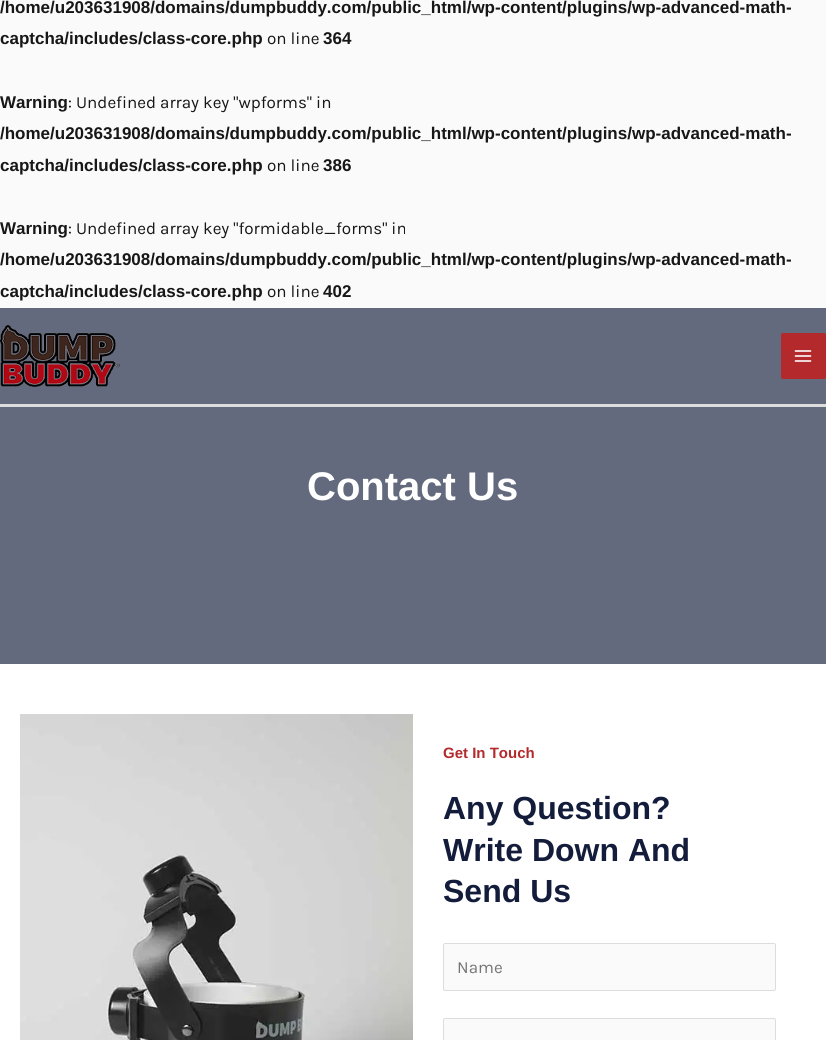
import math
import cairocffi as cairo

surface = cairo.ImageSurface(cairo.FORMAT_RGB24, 826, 1040)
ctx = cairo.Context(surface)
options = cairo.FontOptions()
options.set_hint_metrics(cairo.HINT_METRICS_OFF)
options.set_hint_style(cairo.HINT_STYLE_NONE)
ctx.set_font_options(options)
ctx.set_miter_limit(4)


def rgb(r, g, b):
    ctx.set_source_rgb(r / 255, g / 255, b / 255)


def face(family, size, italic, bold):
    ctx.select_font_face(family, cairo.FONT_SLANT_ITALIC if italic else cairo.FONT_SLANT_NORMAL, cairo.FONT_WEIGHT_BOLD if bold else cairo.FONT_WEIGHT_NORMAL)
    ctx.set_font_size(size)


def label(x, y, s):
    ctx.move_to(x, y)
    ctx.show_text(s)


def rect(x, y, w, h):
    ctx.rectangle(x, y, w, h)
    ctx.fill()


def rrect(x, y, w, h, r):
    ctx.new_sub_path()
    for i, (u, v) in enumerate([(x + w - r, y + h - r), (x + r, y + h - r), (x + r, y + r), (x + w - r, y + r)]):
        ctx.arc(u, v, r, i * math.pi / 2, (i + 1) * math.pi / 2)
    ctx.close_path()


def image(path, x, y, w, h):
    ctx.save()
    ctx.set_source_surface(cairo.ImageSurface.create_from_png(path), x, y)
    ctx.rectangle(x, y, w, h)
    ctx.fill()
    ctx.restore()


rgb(250, 250, 250)
ctx.paint()
face('Liberation Sans', 17, 0, 1)
rgb(23, 23, 23)
label(0, 13, '/home/u203631908/domains/dumpbuddy.com/public_html/wp-content/plugins/wp-advanced-math-')
label(0, 44, 'captcha/includes/class-core.php')
face('Karla', 17, 0, 0)
label(267, 44, 'on line')
face('Liberation Sans', 17, 0, 1)
label(323, 44, '364')
label(0, 108, 'Warning')
face('Karla', 17, 0, 0)
label(68, 108, ': Undefined array key "wpforms" in')
face('Liberation Sans', 17, 0, 1)
label(0, 139, '/home/u203631908/domains/dumpbuddy.com/public_html/wp-content/plugins/wp-advanced-math-')
label(0, 171, 'captcha/includes/class-core.php')
face('Karla', 17, 0, 0)
label(267, 171, 'on line')
face('Liberation Sans', 17, 0, 1)
label(323, 171, '386')
label(0, 234, 'Warning')
face('Karla', 17, 0, 0)
label(68, 234, ': Undefined array key "formidable_forms" in')
face('Liberation Sans', 17, 0, 1)
label(0, 265, '/home/u203631908/domains/dumpbuddy.com/public_html/wp-content/plugins/wp-advanced-math-')
label(0, 297, 'captcha/includes/class-core.php')
face('Karla', 17, 0, 0)
label(267, 297, 'on line')
face('Liberation Sans', 17, 0, 1)
label(323, 297, '402')
rgb(99, 106, 125)
rect(0, 308, 826, 356)
rgb(221, 221, 221)
rect(0, 404, 826, 3)
image('image0.png', 0, 325, 120, 62)
rgb(179, 41, 44)
rrect(781, 333, 45, 46, 2)
ctx.fill()
image('image1.png', 794, 350, 18, 12)
face('Liberation Sans', 40, 0, 1)
rgb(255, 255, 255)
label(307, 500, 'Contact Us')
rect(0, 664, 826, 376)
image('image2.png', 20, 714, 393, 326)
face('Liberation Sans', 15, 0, 1)
rgb(179, 41, 44)
label(443, 758, 'Get In Touch')
face('Liberation Sans', 32, 0, 1)
rgb(19, 29, 59)
label(443, 819, 'Any Question?')
label(443, 861, 'Write Down And')
label(443, 902, 'Send Us')
rgb(250, 250, 250)
rrect(443.5, 943.5, 332, 47, 1.5)
ctx.fill_preserve()
rgb(221, 221, 221)
ctx.set_line_width(1)
ctx.stroke()
face('Karla', 17, 0, 0)
rgb(117, 117, 117)
label(457, 973, 'Name')
rgb(250, 250, 250)
rrect(443.5, 1018.5, 332, 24, 1.5)
ctx.fill_preserve()
rgb(221, 221, 221)
ctx.stroke()
surface.write_to_png('render.png')
